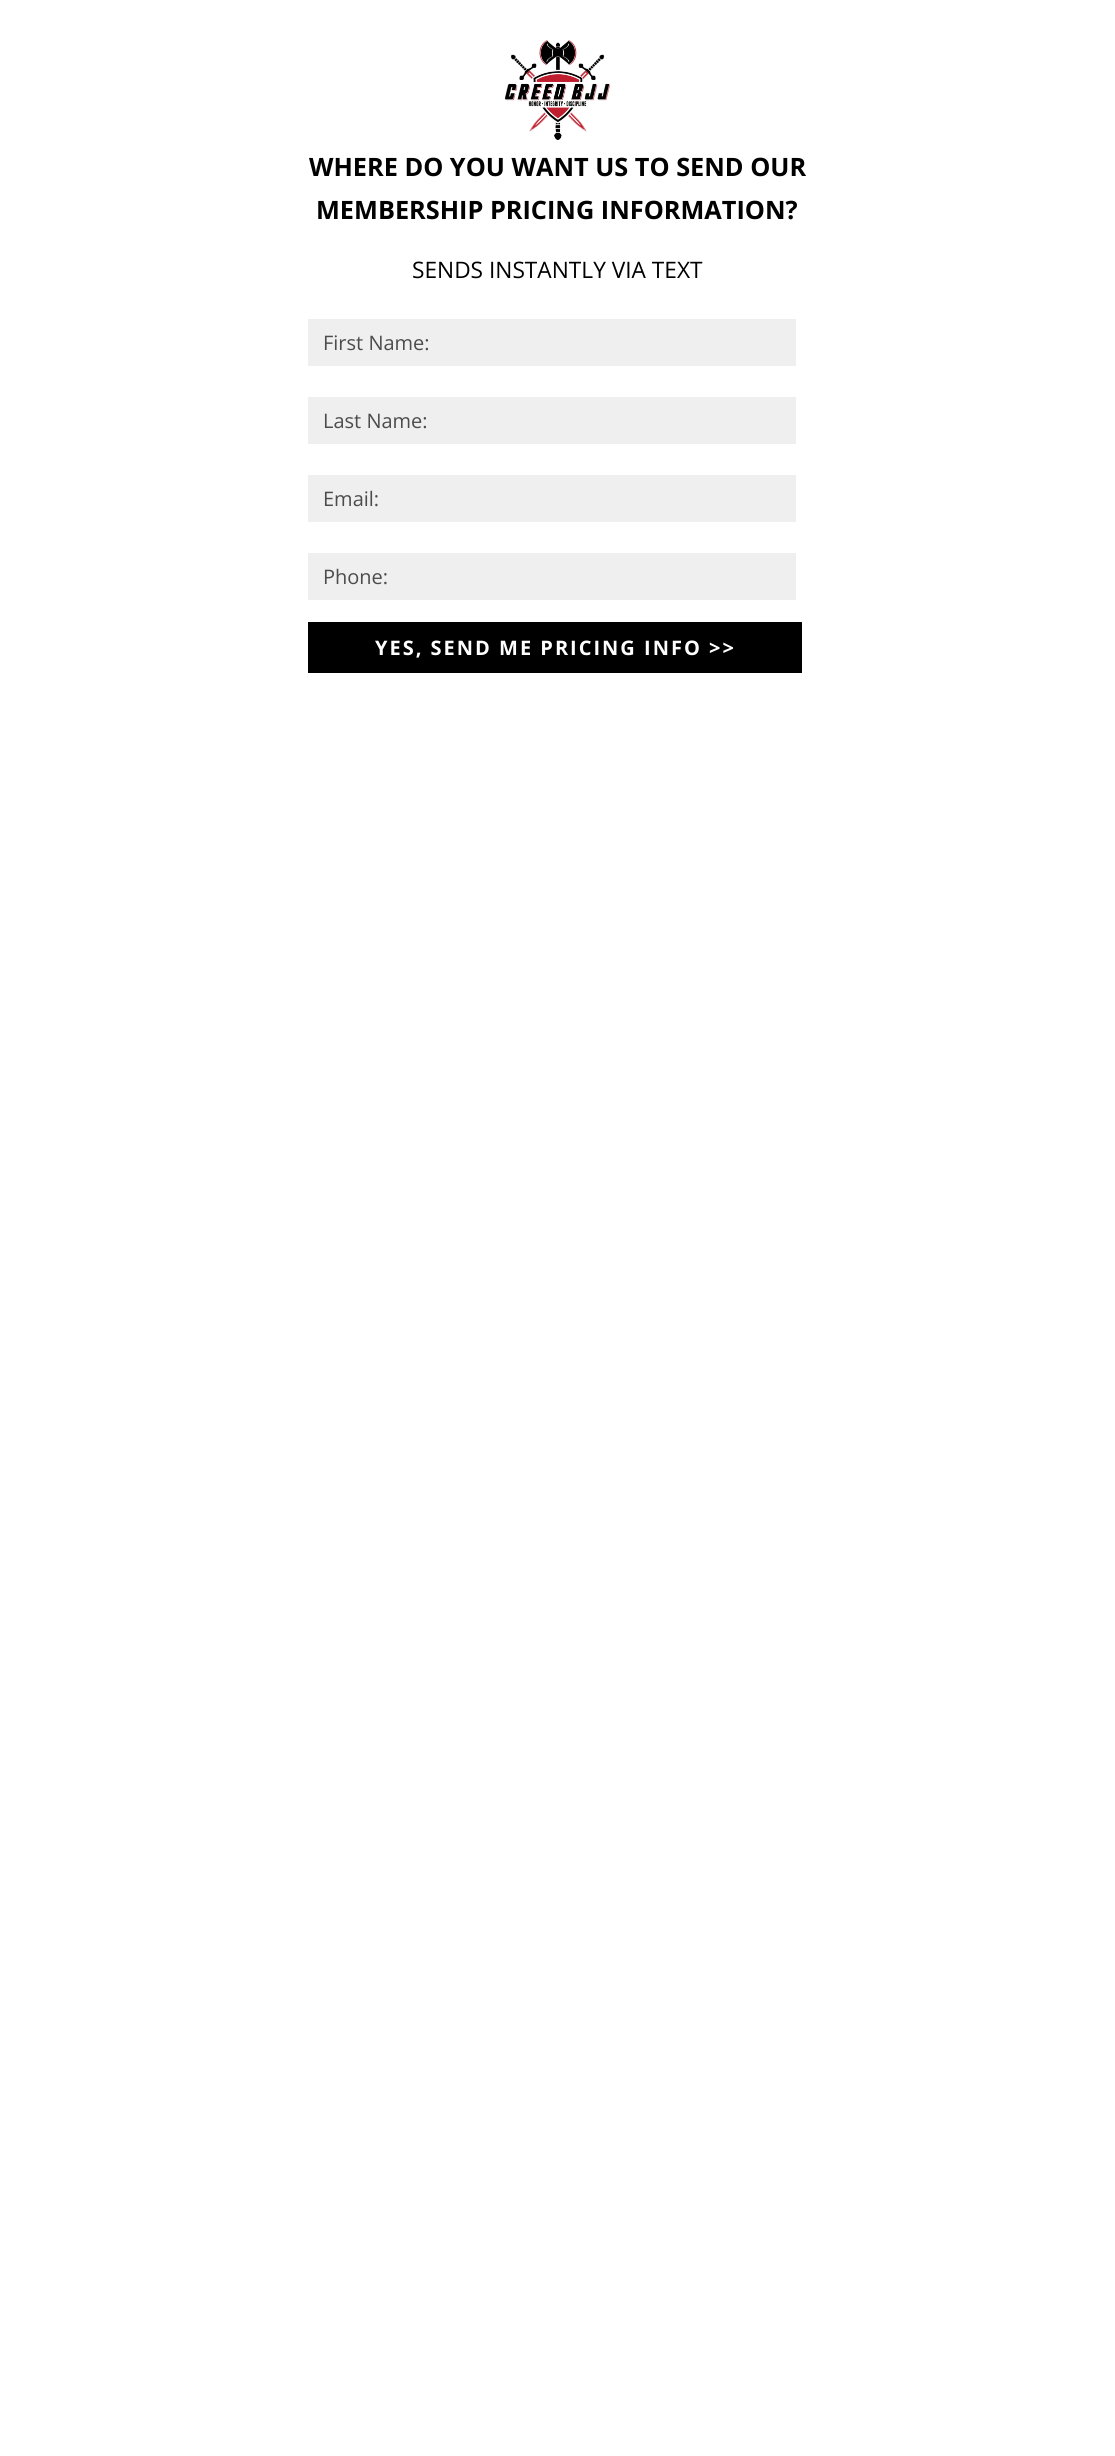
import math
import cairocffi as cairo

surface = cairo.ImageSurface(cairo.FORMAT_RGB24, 1115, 2456)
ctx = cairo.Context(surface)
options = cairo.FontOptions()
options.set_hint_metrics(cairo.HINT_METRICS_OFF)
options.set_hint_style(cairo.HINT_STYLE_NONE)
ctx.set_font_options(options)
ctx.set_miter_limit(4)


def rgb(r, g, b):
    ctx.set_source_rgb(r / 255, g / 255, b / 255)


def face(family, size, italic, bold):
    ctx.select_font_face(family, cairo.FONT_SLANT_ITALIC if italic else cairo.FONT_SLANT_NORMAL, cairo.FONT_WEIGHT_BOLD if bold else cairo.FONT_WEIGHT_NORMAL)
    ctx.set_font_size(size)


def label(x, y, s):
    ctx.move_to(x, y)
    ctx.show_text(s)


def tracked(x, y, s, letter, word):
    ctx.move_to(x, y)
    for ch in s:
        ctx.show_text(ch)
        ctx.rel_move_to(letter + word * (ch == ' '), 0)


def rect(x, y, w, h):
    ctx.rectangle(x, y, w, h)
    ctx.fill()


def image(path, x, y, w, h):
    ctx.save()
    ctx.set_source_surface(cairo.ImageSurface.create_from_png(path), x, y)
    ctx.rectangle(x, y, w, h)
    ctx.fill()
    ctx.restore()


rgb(255, 255, 255)
ctx.paint()
image('image0.png', 505, 40, 105, 100)
face('Open Sans', 25.3, 0, 1)
rgb(0, 0, 0)
label(309, 176, 'WHERE DO YOU WANT US TO SEND OUR')
label(316, 219, 'MEMBERSHIP PRICING INFORMATION?')
face('Open Sans', 22.7, 0, 0)
label(412, 278, 'SENDS INSTANTLY VIA TEXT')
rgb(239, 239, 239)
rect(308, 319, 488, 47)
face('Open Sans', 20, 0, 0)
rgb(76, 76, 76)
label(323, 350, 'First Name:')
rgb(239, 239, 239)
rect(308, 397, 488, 47)
rgb(76, 76, 76)
label(323, 428, 'Last Name:')
rgb(239, 239, 239)
rect(308, 475, 488, 47)
rgb(76, 76, 76)
label(323, 506, 'Email:')
rgb(239, 239, 239)
rect(308, 553, 488, 47)
rgb(76, 76, 76)
label(323, 584, 'Phone:')
rgb(0, 0, 0)
rect(308, 622, 494, 51)
face('Open Sans', 20, 0, 1)
rgb(255, 255, 255)
tracked(375, 655, 'YES, SEND ME PRICING INFO >>', 2, 0)
surface.write_to_png('render.png')
